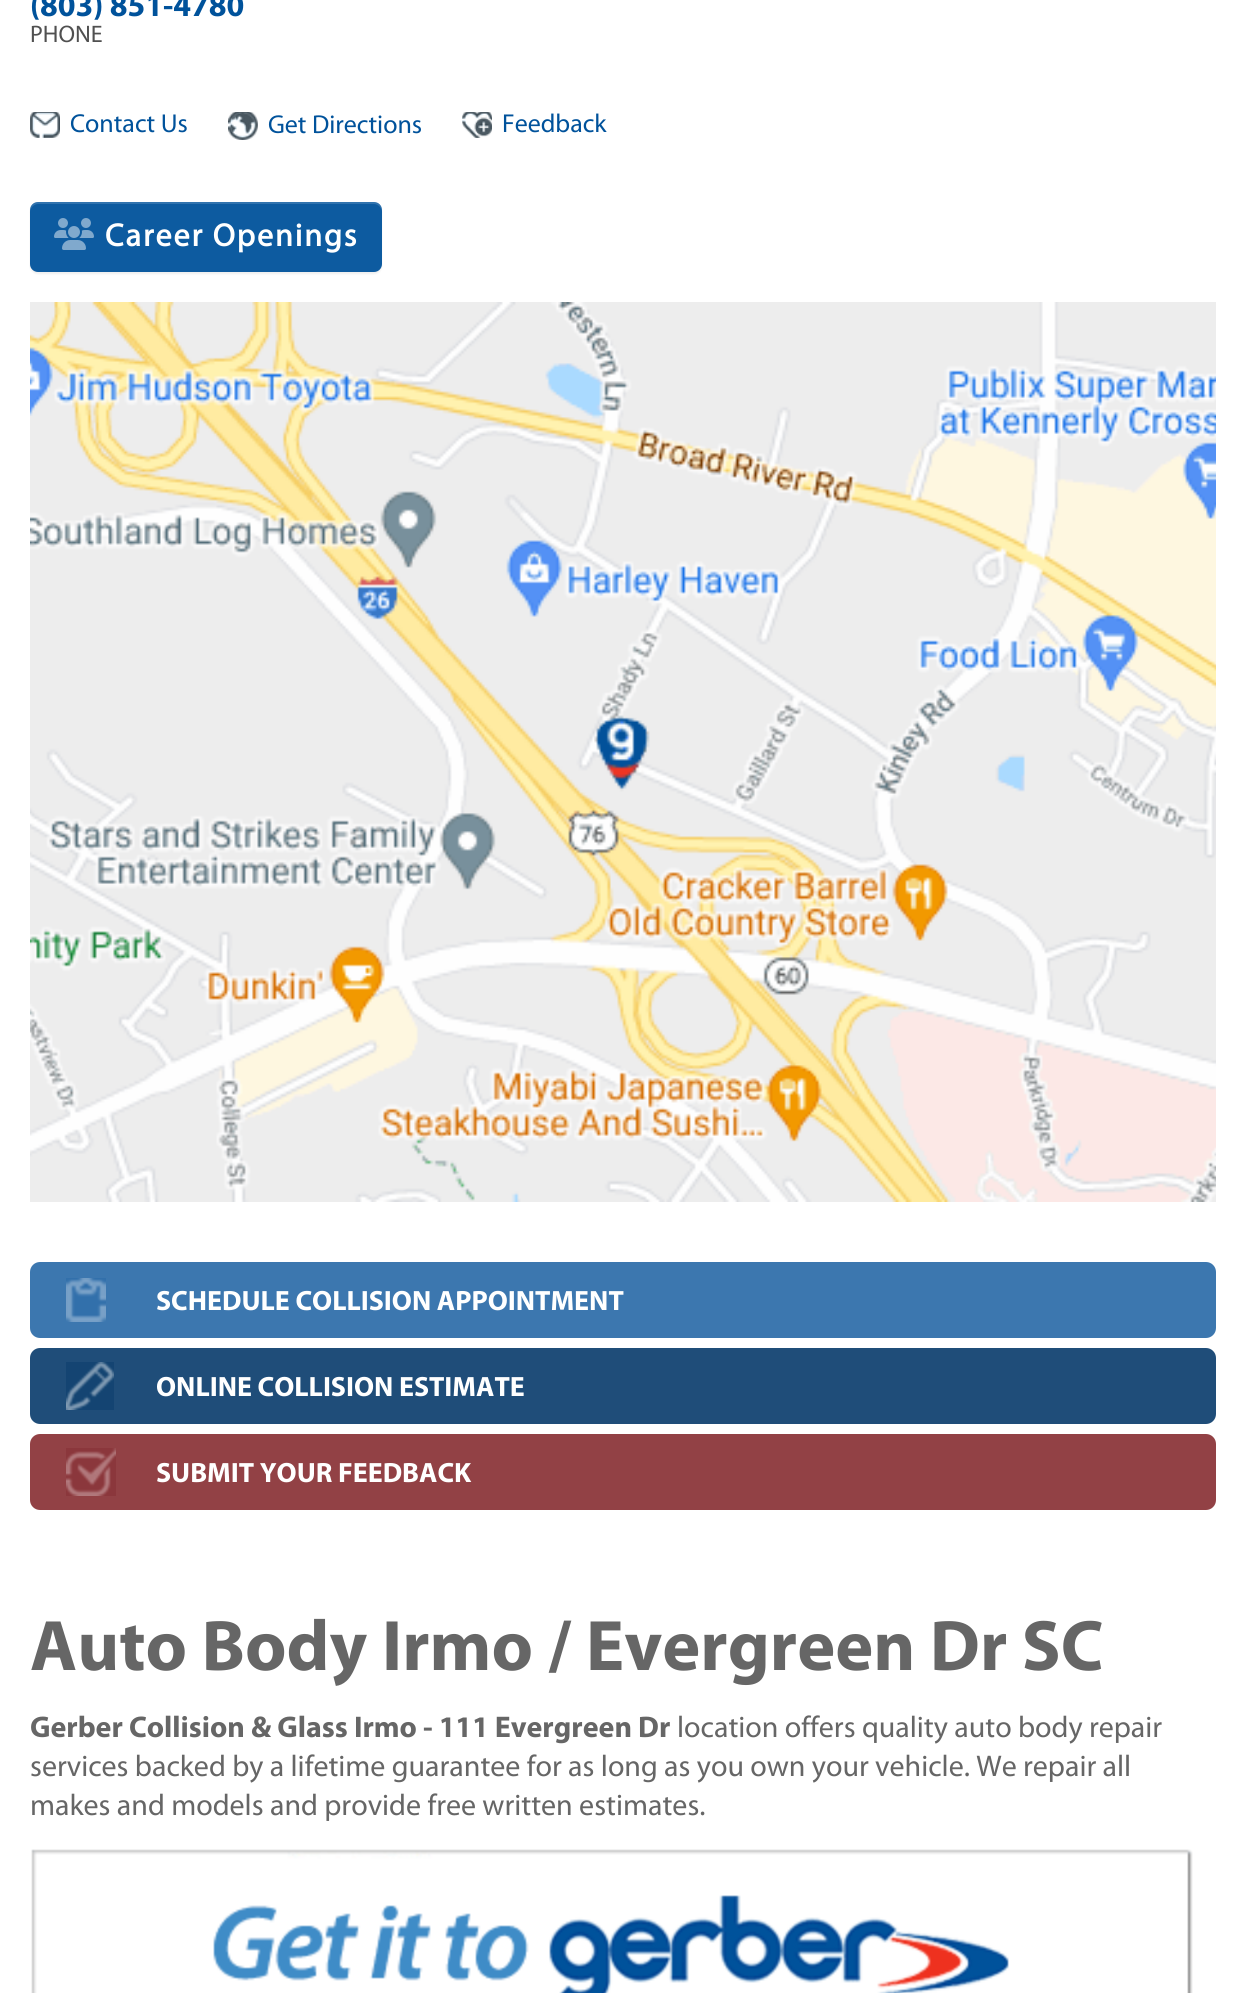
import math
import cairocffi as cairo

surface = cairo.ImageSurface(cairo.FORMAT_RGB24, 1245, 1993)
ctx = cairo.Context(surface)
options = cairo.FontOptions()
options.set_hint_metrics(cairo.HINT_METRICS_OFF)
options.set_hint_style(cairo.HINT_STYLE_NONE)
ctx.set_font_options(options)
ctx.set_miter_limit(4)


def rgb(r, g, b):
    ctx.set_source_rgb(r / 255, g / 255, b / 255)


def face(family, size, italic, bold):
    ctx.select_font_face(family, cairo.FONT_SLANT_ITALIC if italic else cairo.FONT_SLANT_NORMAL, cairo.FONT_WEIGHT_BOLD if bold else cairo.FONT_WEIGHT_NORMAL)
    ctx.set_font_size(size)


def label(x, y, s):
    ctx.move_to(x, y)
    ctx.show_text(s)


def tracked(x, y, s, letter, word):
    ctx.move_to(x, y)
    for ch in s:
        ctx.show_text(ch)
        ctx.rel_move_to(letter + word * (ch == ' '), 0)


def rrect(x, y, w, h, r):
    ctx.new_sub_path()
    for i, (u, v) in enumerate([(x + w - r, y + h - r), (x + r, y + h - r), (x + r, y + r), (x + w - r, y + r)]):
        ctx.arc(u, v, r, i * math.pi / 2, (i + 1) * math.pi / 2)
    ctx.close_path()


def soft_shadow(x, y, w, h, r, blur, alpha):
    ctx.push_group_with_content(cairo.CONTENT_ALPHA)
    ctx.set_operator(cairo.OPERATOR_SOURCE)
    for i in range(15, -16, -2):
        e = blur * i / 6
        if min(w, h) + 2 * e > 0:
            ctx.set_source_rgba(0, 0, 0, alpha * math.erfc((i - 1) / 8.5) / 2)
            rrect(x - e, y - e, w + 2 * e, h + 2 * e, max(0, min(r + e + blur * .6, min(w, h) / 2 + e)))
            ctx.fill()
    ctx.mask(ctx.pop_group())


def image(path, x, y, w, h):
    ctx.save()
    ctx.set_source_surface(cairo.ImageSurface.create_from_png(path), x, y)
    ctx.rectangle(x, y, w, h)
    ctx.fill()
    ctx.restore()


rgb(255, 255, 255)
ctx.paint()
face('Myriad', 32, 0, 1)
rgb(0, 82, 155)
label(30, 16, '(803) 851-4780')
face('Myriad Medium', 24, 0, 0)
rgb(80, 80, 80)
label(30, 42, 'PHONE')
image('image0.png', 30, 112, 30, 26)
face('Myriad Medium', 26, 0, 0)
rgb(0, 82, 155)
label(70, 132, 'Contact Us')
image('image1.png', 228, 112, 30, 28)
label(268, 133, 'Get Directions')
image('image2.png', 462, 112, 30, 26)
label(502, 132, 'Feedback')
rgb(13, 13, 13)
soft_shadow(30, 204, 352, 70, 8, 1, 0.07)
rgb(13, 91, 160)
rrect(30, 202, 352, 70, 8)
ctx.fill()
ctx.set_source_rgba(1, 1, 1, 0.15)
ctx.new_path()
ctx.move_to(38, 204)
ctx.line_to(374, 204)
ctx.curve_to(378, 204, 382, 208, 382, 212)
ctx.line_to(382, 210)
ctx.curve_to(382, 206, 378, 202, 374, 202)
ctx.line_to(38, 202)
ctx.curve_to(34, 202, 30, 206, 30, 210)
ctx.line_to(30, 212)
ctx.curve_to(30, 208, 34, 204, 38, 204)
ctx.close_path()
ctx.fill()
image('image3.png', 54, 218, 40, 32)
face('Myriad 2', 32, 0, 1)
rgb(255, 255, 255)
tracked(105, 246, 'Career Openings', 2, 0)
image('image4.png', 30, 302, 1186, 900)
rgb(60, 119, 175)
rrect(30, 1262, 1186, 76, 10)
ctx.fill()
image('image5.png', 66, 1278, 40, 44)
face('Myriad', 28, 0, 1)
rgb(255, 255, 255)
label(156, 1310, 'SCHEDULE COLLISION APPOINTMENT')
rgb(31, 77, 121)
rrect(30, 1348, 1186, 76, 10)
ctx.fill()
image('image6.png', 66, 1362, 48, 48)
rgb(255, 255, 255)
label(156, 1396, 'ONLINE COLLISION ESTIMATE')
rgb(146, 65, 69)
rrect(30, 1434, 1186, 76, 10)
ctx.fill()
image('image7.png', 66, 1448, 50, 48)
rgb(255, 255, 255)
label(156, 1482, 'SUBMIT YOUR FEEDBACK')
face('Myriad', 72, 0, 1)
rgb(102, 102, 102)
label(30, 1670, 'Auto Body Irmo / Evergreen Dr SC')
face('Myriad', 30, 0, 1)
label(30, 1737, 'Gerber Collision & Glass Irmo - 111 Evergreen Dr')
face('Myriad Medium', 30, 0, 0)
label(677, 1737, 'location offers quality auto body repair')
label(30, 1776, 'services backed by a lifetime guarantee for as long as you own your vehicle. We repair all')
label(30, 1815, 'makes and models and provide free written estimates.')
image('image8.png', 31, 1849, 1162, 144)
surface.write_to_png('render.png')
